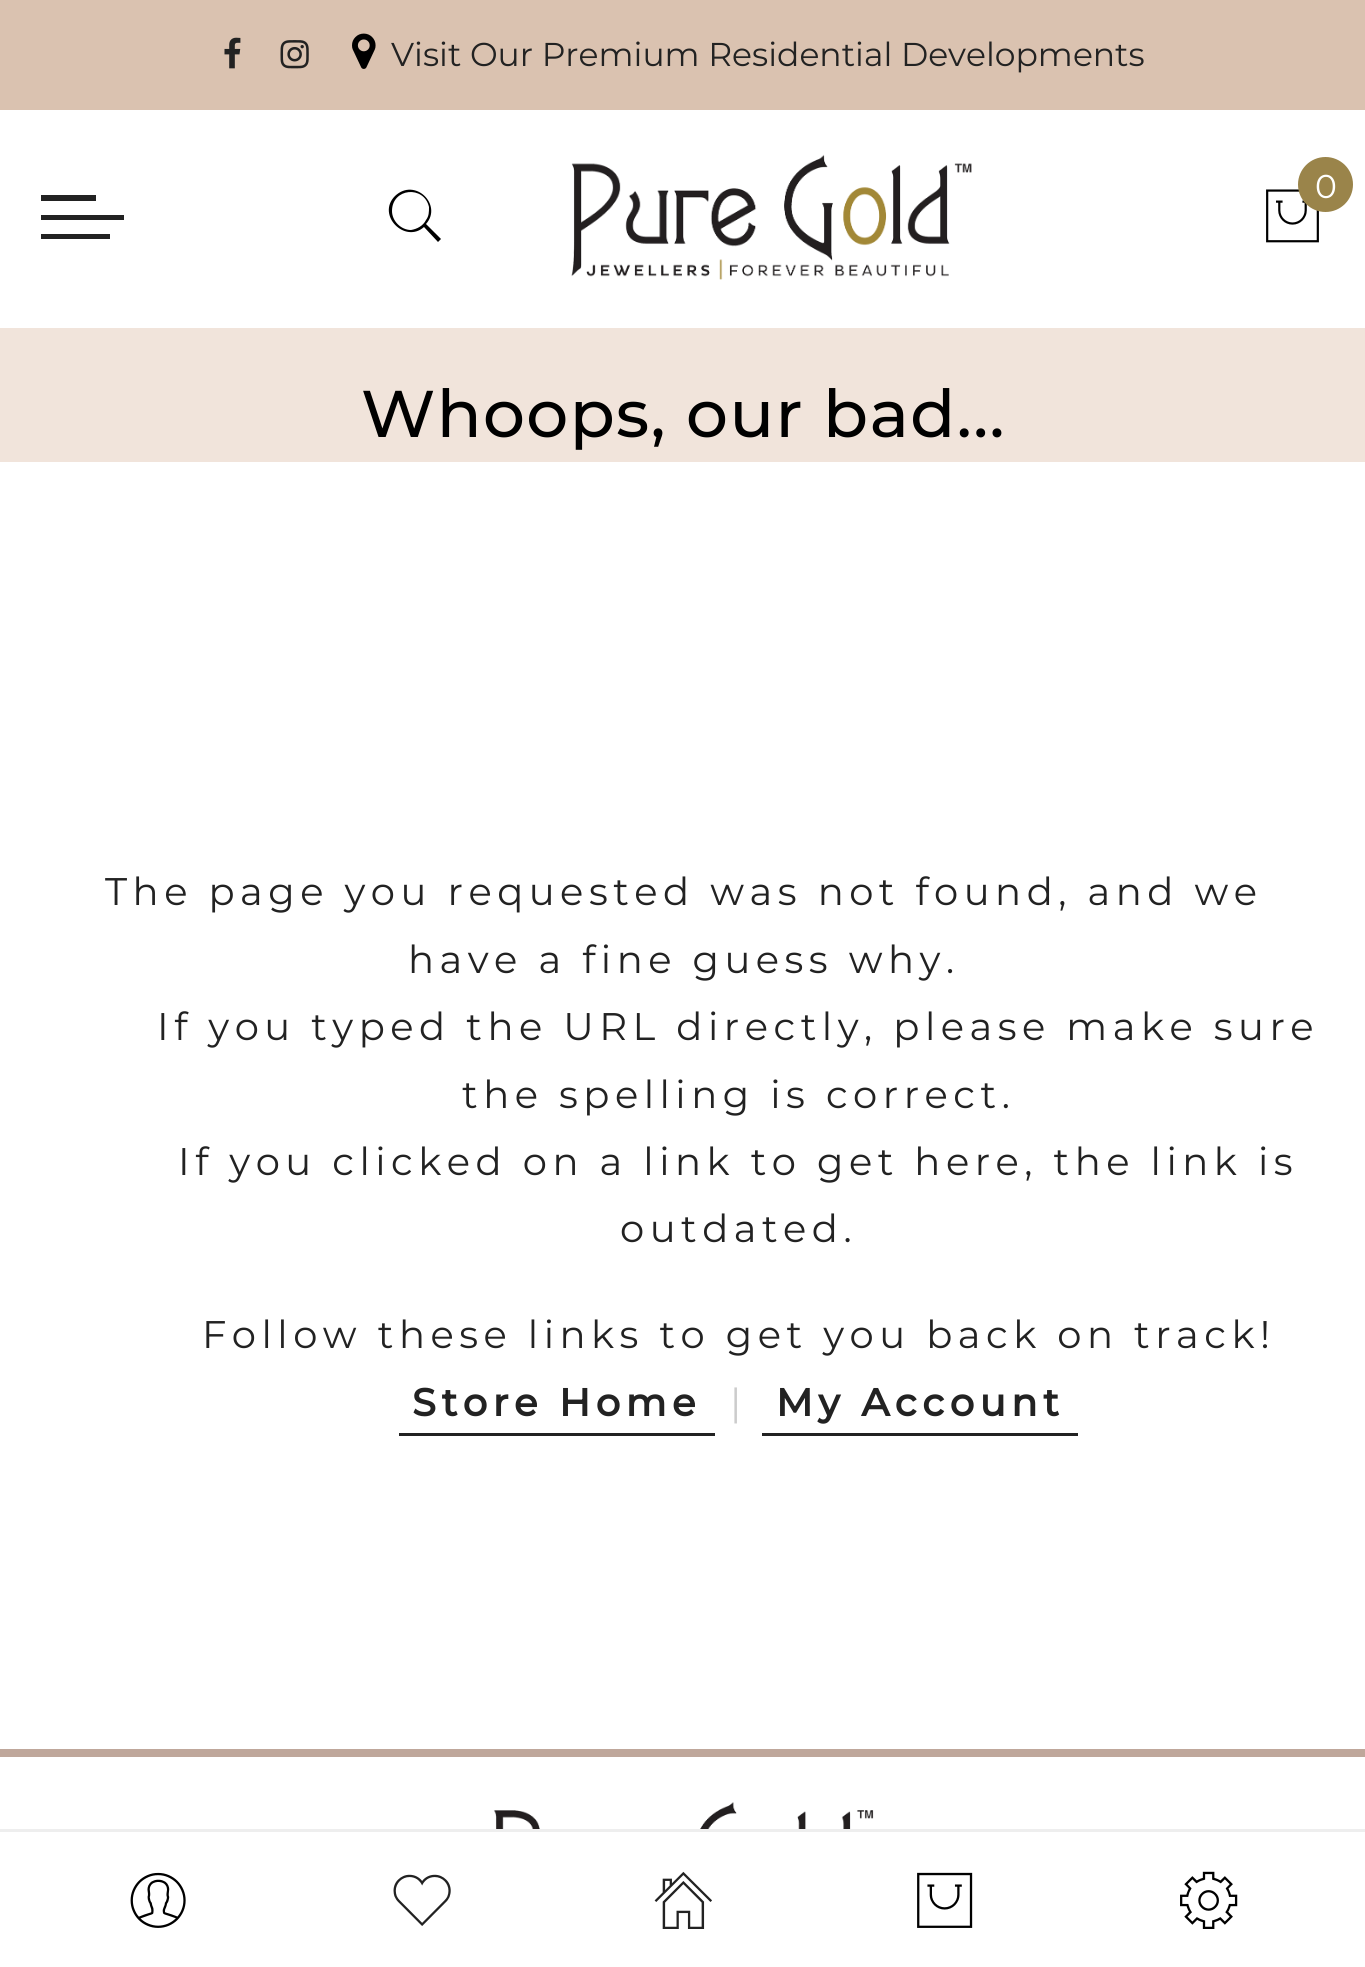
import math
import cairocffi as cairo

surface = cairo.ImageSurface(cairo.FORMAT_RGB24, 1365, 1967)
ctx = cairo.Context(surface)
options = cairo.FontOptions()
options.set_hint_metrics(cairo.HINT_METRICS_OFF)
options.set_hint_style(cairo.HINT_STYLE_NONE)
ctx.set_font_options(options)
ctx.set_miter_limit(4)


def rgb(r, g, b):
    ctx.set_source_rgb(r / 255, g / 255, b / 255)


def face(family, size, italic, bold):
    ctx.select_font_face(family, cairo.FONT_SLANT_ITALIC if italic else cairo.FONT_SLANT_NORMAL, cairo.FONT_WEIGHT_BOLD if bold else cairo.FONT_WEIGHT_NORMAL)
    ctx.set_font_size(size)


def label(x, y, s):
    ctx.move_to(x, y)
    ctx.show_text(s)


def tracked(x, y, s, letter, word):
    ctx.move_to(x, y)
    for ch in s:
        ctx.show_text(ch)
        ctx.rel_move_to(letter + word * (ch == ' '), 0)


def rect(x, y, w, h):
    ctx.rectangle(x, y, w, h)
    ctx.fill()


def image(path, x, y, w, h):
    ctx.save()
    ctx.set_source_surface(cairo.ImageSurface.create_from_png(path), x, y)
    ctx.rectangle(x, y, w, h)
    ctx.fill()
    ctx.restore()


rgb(255, 255, 255)
ctx.paint()
rgb(218, 194, 176)
rect(0, 0, 1365, 110)
image('image0.png', 224, 37, 17, 32)
image('image1.png', 280, 40, 29, 29)
image('image2.png', 352, 33, 24, 36)
face('Montserrat Thin', 33, 0, 0)
rgb(34, 34, 34)
label(391, 66, 'Visit Our Premium Residential Developments')
rgb(0, 0, 0)
ctx.new_path()
ctx.move_to(441, 239)
ctx.line_to(426, 224)
ctx.curve_to(443, 205, 415, 177, 395, 196)
ctx.curve_to(376, 215, 405, 244, 424, 227)
ctx.line_to(438, 242)
ctx.close_path()
ctx.move_to(392, 211)
ctx.curve_to(392, 188, 424, 185, 429, 207)
ctx.curve_to(429, 212, 429, 216, 426, 220)
ctx.curve_to(423, 226, 417, 229, 411, 230)
ctx.curve_to(401, 230, 392, 221, 392, 211)
ctx.close_path()
ctx.fill()
image('image3.png', 571, 154, 401, 126)
image('image4.png', 1266, 189, 53, 54)
rgb(154, 132, 74)
ctx.arc(1325.5, 184.5, 27.5, 0, 2 * math.pi)
ctx.fill()
rgb(255, 255, 255)
label(1315, 198, '0')
rgb(34, 34, 34)
rect(41, 195, 55, 6)
rect(41, 215, 83, 5)
rect(41, 234, 69, 5)
rgb(238, 238, 238)
rect(0, 1829, 1365, 3)
image('image5.png', 130, 1872, 56, 56)
image('image6.png', 393, 1874, 58, 52)
image('image7.png', 654, 1871, 58, 58)
image('image8.png', 917, 1872, 56, 56)
image('image9.png', 1180, 1871, 58, 58)
rgb(241, 228, 219)
rect(0, 328, 1365, 134)
face('Montserrat Medium', 66, 0, 0)
rgb(0, 0, 0)
tracked(361, 437, 'Whoops, our bad...', 1.4, 0)
face('Montserrat Thin', 38.5, 0, 0)
rgb(34, 34, 34)
tracked(105, 905, 'The page you requested was not found, and we', 5.5, 0)
tracked(408, 973, 'have a fine guess why.', 5.5, 0)
tracked(157, 1040, 'If you typed the URL directly, please make sure', 5.5, 0)
tracked(462, 1108, 'the spelling is correct.', 5.5, 0)
tracked(178, 1175, 'If you clicked on a link to get here, the link is', 5.5, 0)
tracked(620, 1242, 'outdated.', 5.5, 0)
tracked(202, 1348, 'Follow these links to get you back on track!', 5.5, 0)
face('Montserrat', 38.5, 0, 1)
tracked(412, 1416, 'Store Home', 5.5, 0)
rect(399, 1433, 316, 3)
face('Montserrat Thin', 38.5, 0, 0)
rgb(204, 204, 204)
tracked(730, 1416, '|', 5.5, 0)
face('Montserrat', 38.5, 0, 1)
rgb(34, 34, 34)
tracked(776, 1416, 'My Account', 5.5, 0)
rect(762, 1433, 316, 3)
rgb(191, 167, 155)
rect(0, 1749, 1365, 8)
image('image10.png', 493, 1802, 381, 27)
surface.write_to_png('render.png')
